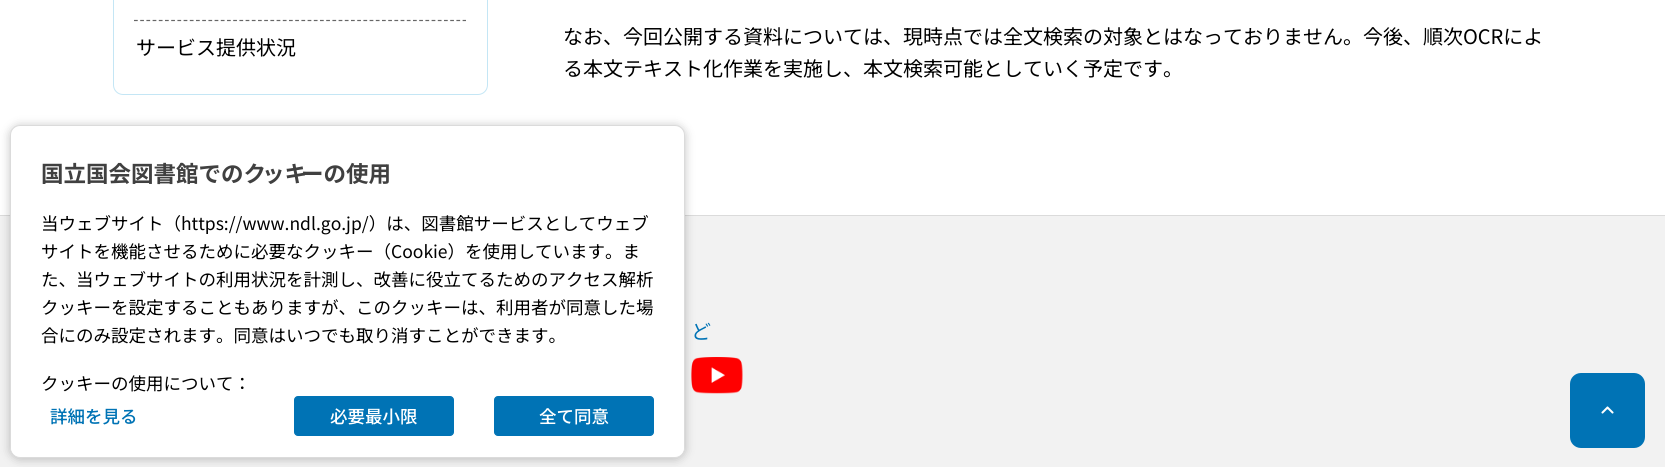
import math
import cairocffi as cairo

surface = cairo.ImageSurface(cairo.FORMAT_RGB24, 1665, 467)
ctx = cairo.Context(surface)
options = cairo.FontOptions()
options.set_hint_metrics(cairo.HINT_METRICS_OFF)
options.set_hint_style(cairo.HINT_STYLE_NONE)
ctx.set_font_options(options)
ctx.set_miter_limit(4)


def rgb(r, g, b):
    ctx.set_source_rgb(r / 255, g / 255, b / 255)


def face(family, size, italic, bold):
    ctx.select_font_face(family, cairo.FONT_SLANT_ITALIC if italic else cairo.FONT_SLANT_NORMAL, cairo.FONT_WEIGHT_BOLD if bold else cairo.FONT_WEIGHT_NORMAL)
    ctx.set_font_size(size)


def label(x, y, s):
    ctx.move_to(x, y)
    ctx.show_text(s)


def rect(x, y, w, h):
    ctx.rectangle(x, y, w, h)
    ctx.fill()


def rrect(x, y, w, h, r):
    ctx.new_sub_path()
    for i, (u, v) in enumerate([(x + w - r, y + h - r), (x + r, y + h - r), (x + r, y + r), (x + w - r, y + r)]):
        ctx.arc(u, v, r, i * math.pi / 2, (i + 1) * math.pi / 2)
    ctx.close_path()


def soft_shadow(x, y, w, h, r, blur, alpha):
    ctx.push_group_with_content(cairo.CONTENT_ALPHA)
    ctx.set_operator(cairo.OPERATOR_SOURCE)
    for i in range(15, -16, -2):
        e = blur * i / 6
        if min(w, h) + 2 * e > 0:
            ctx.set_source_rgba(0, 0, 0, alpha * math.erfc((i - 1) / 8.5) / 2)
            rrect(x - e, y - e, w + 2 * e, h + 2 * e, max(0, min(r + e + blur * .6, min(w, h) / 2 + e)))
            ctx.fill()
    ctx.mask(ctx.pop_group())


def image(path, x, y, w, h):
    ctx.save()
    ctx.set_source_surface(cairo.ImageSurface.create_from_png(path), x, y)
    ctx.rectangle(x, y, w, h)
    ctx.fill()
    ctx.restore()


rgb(255, 255, 255)
ctx.paint()
rrect(113.5, -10.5, 374, 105, 9.5)
rgb(196, 230, 245)
ctx.set_line_width(1)
ctx.stroke()
ctx.new_path()
ctx.move_to(134, 20.5)
ctx.line_to(466, 20.5)
rgb(102, 102, 102)
ctx.set_line_width(1.2)
ctx.set_dash([3.75, 2.45])
ctx.stroke()
face('Noto Sans JP', 20, 0, 0)
rgb(0, 0, 0)
label(136, 55, 'サービス提供状況')
label(563, 44, 'なお、今回公開する資料については、現時点では全文検索の対象とはなっておりません。今後、順次OCRによ')
label(563, 76, 'る本文テキスト化作業を実施し、本文検索可能としていく予定です。')
rgb(242, 242, 242)
rect(0, 216, 1665, 251)
rgb(219, 219, 219)
rect(0, 215, 1665, 1)
image('image0.png', 691, 357, 52, 37)
rgb(0, 0, 0)
soft_shadow(10, 126, 675, 333, 10, 5, 0.24)
rgb(255, 255, 255)
rrect(10.5, 125.5, 674, 332, 9.5)
ctx.fill_preserve()
rgb(219, 219, 219)
ctx.set_line_width(1)
ctx.set_dash([])
ctx.stroke()
face('Noto Sans JP', 22.5, 0, 1)
rgb(64, 64, 64)
label(41, 182, '国立国会図書館でのク')
label(262, 182, 'ッキ')
label(301, 182, 'ーの使用')
face('Noto Sans JP', 17.5, 0, 0)
rgb(0, 0, 0)
label(41, 230, '当ウェブサイト（https://www.ndl.go.jp/）は、図書館サービスとしてウェブ')
label(41, 258, 'サイトを機能させるために必要なクッキー（Cookie）を使用しています。ま')
label(41, 286, 'た、当ウェブサイトの利用状況を計測し、改善に役立てるためのアクセス解析')
label(41, 314, 'クッキーを設定することもありますが、このクッキーは、利用者が同意した場')
label(41, 342, '合にのみ設定されます。同意はいつでも取り消すことができます。')
rgb(255, 255, 255)
ctx.new_path()
ctx.move_to(11, 349)
ctx.line_to(684, 349)
ctx.line_to(684, 447)
ctx.curve_to(684, 452, 680, 456, 675, 456)
ctx.line_to(20, 456)
ctx.curve_to(15, 456, 11, 452, 11, 447)
ctx.close_path()
ctx.fill()
rgb(0, 0, 0)
label(41, 390, 'クッキーの使用について：')
face('Noto Sans JP Medium', 17.5, 0, 0)
rgb(0, 115, 181)
label(50, 423, '詳細を見る')
rrect(294.5, 396.5, 159, 39, 3.5)
ctx.fill_preserve()
ctx.stroke()
rgb(255, 255, 255)
label(330, 423, '必要最小限')
rgb(0, 115, 181)
rrect(494.5, 396.5, 159, 39, 3.5)
ctx.fill_preserve()
ctx.stroke()
rgb(255, 255, 255)
label(539, 423, '全て同意')
face('Noto Sans JP', 20, 0, 0)
rgb(0, 115, 181)
label(691, 339, 'ど')
rrect(1570, 373, 75, 75, 11)
ctx.fill()
image('image1.png', 1601, 406, 13, 8)
surface.write_to_png('render.png')
